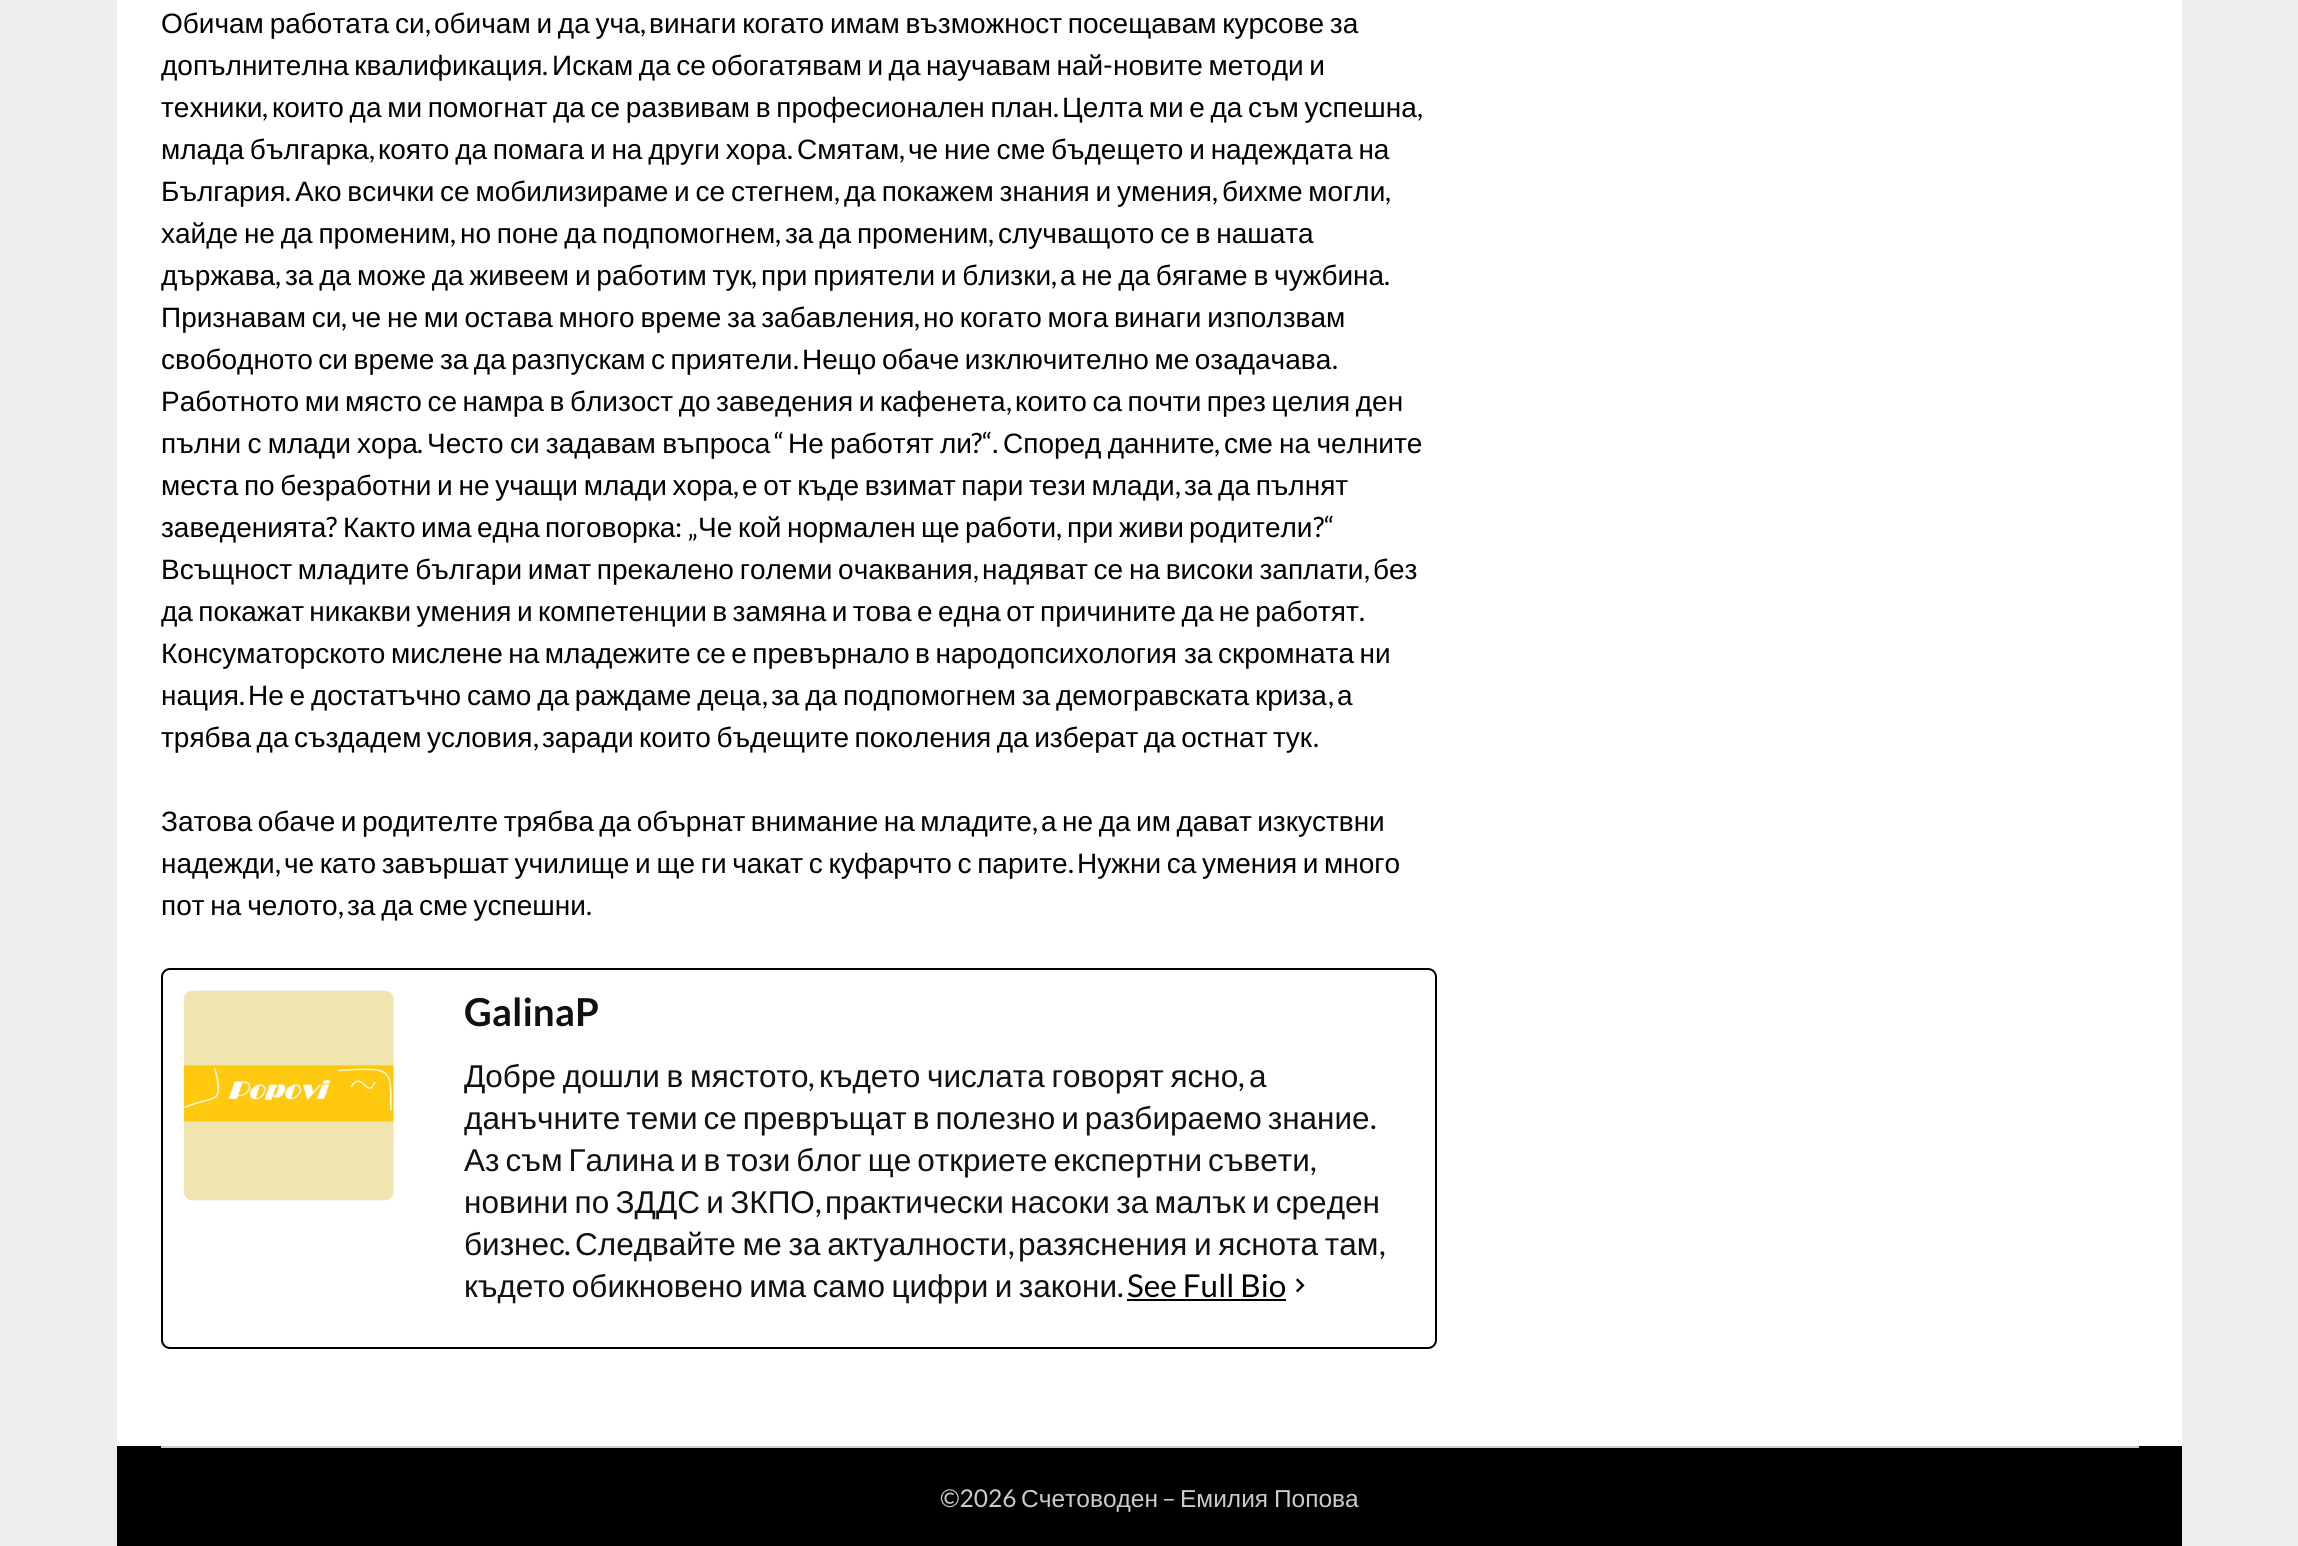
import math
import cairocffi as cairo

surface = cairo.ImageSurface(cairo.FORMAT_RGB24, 2298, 1546)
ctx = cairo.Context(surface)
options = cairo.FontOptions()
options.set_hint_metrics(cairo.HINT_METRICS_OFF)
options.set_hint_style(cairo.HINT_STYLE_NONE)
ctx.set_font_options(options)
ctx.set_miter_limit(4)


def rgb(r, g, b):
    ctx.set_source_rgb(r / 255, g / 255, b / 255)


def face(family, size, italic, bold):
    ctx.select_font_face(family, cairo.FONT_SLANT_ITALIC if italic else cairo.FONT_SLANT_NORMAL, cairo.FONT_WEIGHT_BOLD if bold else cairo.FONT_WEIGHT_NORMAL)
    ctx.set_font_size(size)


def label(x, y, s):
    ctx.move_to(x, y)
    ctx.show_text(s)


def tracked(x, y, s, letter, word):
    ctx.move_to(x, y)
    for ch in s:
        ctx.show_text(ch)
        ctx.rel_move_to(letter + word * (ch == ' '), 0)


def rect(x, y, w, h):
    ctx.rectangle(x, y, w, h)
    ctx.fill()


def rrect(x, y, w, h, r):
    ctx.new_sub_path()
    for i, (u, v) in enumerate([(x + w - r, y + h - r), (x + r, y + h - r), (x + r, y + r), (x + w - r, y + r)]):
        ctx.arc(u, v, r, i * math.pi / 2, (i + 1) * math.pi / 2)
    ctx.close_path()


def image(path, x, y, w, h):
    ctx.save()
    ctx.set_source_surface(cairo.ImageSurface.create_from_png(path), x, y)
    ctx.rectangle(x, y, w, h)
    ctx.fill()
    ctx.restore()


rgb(238, 238, 238)
ctx.paint()
rgb(255, 255, 255)
rect(117, 0, 2065, 1446)
face('Liberation Sans', 28, 0, 0)
rgb(0, 0, 0)
tracked(161, 33, 'Обичам работата си', 0, -2)
face('Lato', 28, 0, 0)
label(425, 33, ',')
face('Liberation Sans', 28, 0, 0)
tracked(434, 33, 'обичам и да уча', 0, -2)
face('Lato', 28, 0, 0)
label(640, 33, ',')
face('Liberation Sans', 28, 0, 0)
tracked(649, 33, 'винаги когато имам възможност посещавам курсове за', 0, -2)
tracked(161, 75, 'допълнителна квалификация', 0, -2.25)
tracked(552, 75, 'Искам да се обогатявам и да научавам най', 0, -2.25)
face('Lato', 28, 0, 0)
label(1103, 75, '-')
face('Liberation Sans', 28, 0, 0)
tracked(1113, 75, 'новите методи и', 0, -2.25)
face('Lato', 28, 0, 0)
label(542, 75, '.')
face('Liberation Sans', 28, 0, 0)
label(161, 117, 'техники')
face('Lato', 28, 0, 0)
label(262, 117, ',')
face('Liberation Sans', 28, 0, 0)
tracked(272, 117, 'които да ми помогнат да се развивам в професионален план', 0, -2.1)
face('Lato', 28, 0, 0)
label(1053, 117, '.')
face('Liberation Sans', 28, 0, 0)
tracked(1062, 117, 'Целта ми е да съм успешна', 0, -2.1)
face('Lato', 28, 0, 0)
label(1417, 117, ',')
face('Liberation Sans', 28, 0, 0)
tracked(161, 159, 'млада българка', 0, -2)
face('Lato', 28, 0, 0)
label(369, 159, ',')
face('Liberation Sans', 28, 0, 0)
tracked(378, 159, 'която да помага и на други хора', 0, -2)
face('Lato', 28, 0, 0)
label(787, 159, '.')
face('Liberation Sans', 28, 0, 0)
label(797, 159, 'Смятам')
face('Lato', 28, 0, 0)
label(899, 159, ',')
face('Liberation Sans', 28, 0, 0)
tracked(908, 159, 'че ние сме бъдещето и надеждата на', 0, -2)
label(161, 201, 'България')
face('Lato', 28, 0, 0)
label(285, 201, '.')
face('Liberation Sans', 28, 0, 0)
tracked(295, 201, 'Ако всички се мобилизираме и се стегнем', 0, -2)
face('Lato', 28, 0, 0)
label(834, 201, ',')
face('Liberation Sans', 28, 0, 0)
tracked(844, 201, 'да покажем знания и умения', 0, -2)
face('Lato', 28, 0, 0)
label(1212, 201, ',')
face('Liberation Sans', 28, 0, 0)
tracked(1222, 201, 'бихме могли', 0, -2)
face('Lato', 28, 0, 0)
label(1385, 201, ',')
face('Liberation Sans', 28, 0, 0)
tracked(161, 243, 'хайде не да променим', 0, -2)
face('Lato', 28, 0, 0)
label(450, 243, ',')
face('Liberation Sans', 28, 0, 0)
tracked(460, 243, 'но поне да подпомогнем', 0, -2)
face('Lato', 28, 0, 0)
label(775, 243, ',')
face('Liberation Sans', 28, 0, 0)
tracked(785, 243, 'за да променим', 0, -2)
face('Lato', 28, 0, 0)
label(988, 243, ',')
face('Liberation Sans', 28, 0, 0)
tracked(998, 243, 'случващото се в нашата', 0, -2)
label(161, 285, 'държава')
face('Lato', 28, 0, 0)
label(275, 285, ',')
face('Liberation Sans', 28, 0, 0)
tracked(285, 285, 'за да може да живеем и работим тук', 0, -2)
face('Lato', 28, 0, 0)
label(751, 285, ',')
face('Liberation Sans', 28, 0, 0)
tracked(761, 285, 'при приятели и близки', 0, -2)
face('Lato', 28, 0, 0)
label(1051, 285, ',')
face('Liberation Sans', 28, 0, 0)
tracked(1060, 285, 'а не да бягаме в чужбина', 0, -2)
face('Lato', 28, 0, 0)
label(1384, 285, '.')
face('Liberation Sans', 28, 0, 0)
tracked(161, 327, 'Признавам си', 0, -2)
face('Lato', 28, 0, 0)
label(341, 327, ',')
face('Liberation Sans', 28, 0, 0)
tracked(351, 327, 'че не ми остава много време за забавления', 0, -2)
face('Lato', 28, 0, 0)
label(914, 327, ',')
face('Liberation Sans', 28, 0, 0)
tracked(923, 327, 'но когато мога винаги използвам', 0, -2)
tracked(161, 369, 'свободното си време за да разпускам с приятели', 0, -2.25)
face('Lato', 28, 0, 0)
label(793, 369, '.')
face('Liberation Sans', 28, 0, 0)
tracked(802, 369, 'Нещо обаче изключително ме озадачава', 0, -2.25)
face('Lato', 28, 0, 0)
label(1332, 369, '.')
face('Liberation Sans', 28, 0, 0)
tracked(161, 411, 'Работното ми място се намра в близост до заведения и кафенета', 0, -2.25)
face('Lato', 28, 0, 0)
label(1006, 411, ',')
face('Liberation Sans', 28, 0, 0)
tracked(1015, 411, 'които са почти през целия ден', 0, -2.25)
tracked(161, 453, 'пълни с млади хора', 0, -1.5)
face('Lato', 28, 0, 0)
label(417, 453, '.')
face('Liberation Sans', 28, 0, 0)
tracked(427, 453, 'Често си задавам въпроса', 0, -1.5)
face('Lato', 28, 0, 0)
label(774, 453, '“')
face('Liberation Sans', 28, 0, 0)
tracked(788, 453, 'Не работят ли', 0, -1.5)
face('Lato', 28, 0, 0)
label(971, 453, '?“.')
face('Liberation Sans', 28, 0, 0)
tracked(1003, 453, 'Според данните', 0, -1.5)
face('Lato', 28, 0, 0)
label(1214, 453, ',')
face('Liberation Sans', 28, 0, 0)
tracked(1224, 453, 'сме на челните', 0, -1.5)
tracked(161, 495, 'места по безработни и не учащи млади хора', 0, -2.1)
face('Lato', 28, 0, 0)
label(733, 495, ',')
face('Liberation Sans', 28, 0, 0)
tracked(742, 495, 'е от къде взимат пари тези млади', 0, -2.1)
face('Lato', 28, 0, 0)
label(1175, 495, ',')
face('Liberation Sans', 28, 0, 0)
tracked(1184, 495, 'за да пълнят', 0, -2.1)
label(161, 537, 'заведенията')
face('Lato', 28, 0, 0)
label(326, 537, '?')
face('Liberation Sans', 28, 0, 0)
label(343, 537, 'Както')
label(421, 537, 'има')
label(477, 537, 'една')
label(545, 537, 'поговорка')
face('Lato', 28, 0, 0)
label(675, 537, ': „')
face('Liberation Sans', 28, 0, 0)
label(698, 537, 'Че')
label(738, 537, 'кой')
label(787, 537, 'нормален')
label(921, 537, 'ще')
label(965, 537, 'работи')
face('Lato', 28, 0, 0)
label(1056, 537, ',')
face('Liberation Sans', 28, 0, 0)
label(1067, 537, 'при')
label(1119, 537, 'живи')
label(1189, 537, 'родители')
face('Lato', 28, 0, 0)
label(1313, 537, '?“')
face('Liberation Sans', 28, 0, 0)
tracked(161, 579, 'Всъщност младите българи имат прекалено големи очаквания', 0, -2)
face('Lato', 28, 0, 0)
label(973, 579, ',')
face('Liberation Sans', 28, 0, 0)
tracked(982, 579, 'надяват се на високи заплати', 0, -2)
face('Lato', 28, 0, 0)
label(1364, 579, ',')
face('Liberation Sans', 28, 0, 0)
label(1373, 579, 'без')
tracked(161, 621, 'да покажат никакви умения и компетенции в замяна и това е една от причините да не работят', 0, -2.4)
face('Lato', 28, 0, 0)
label(1359, 621, '.')
face('Liberation Sans', 28, 0, 0)
tracked(161, 663, 'Консуматорското мислене на младежите се е превърнало в народопсихология', 0, -2.25)
tracked(1184, 663, 'за скромната ни', 0, -2.25)
label(161, 705, 'нация')
face('Lato', 28, 0, 0)
label(239, 705, '.')
face('Liberation Sans', 28, 0, 0)
tracked(248, 705, 'Не е достатъчно само да раждаме деца', 0, -2)
face('Lato', 28, 0, 0)
label(762, 705, ',')
face('Liberation Sans', 28, 0, 0)
tracked(771, 705, 'за да подпомогнем за демогравската криза', 0, -2)
face('Lato', 28, 0, 0)
label(1328, 705, ',')
face('Liberation Sans', 28, 0, 0)
label(1337, 705, 'а')
tracked(161, 747, 'трябва да създадем условия', 0, -2.25)
face('Lato', 28, 0, 0)
label(533, 747, ',')
face('Liberation Sans', 28, 0, 0)
tracked(542, 747, 'заради които бъдещите поколения да изберат да остнат тук', 0, -2.25)
face('Lato', 28, 0, 0)
label(1313, 747, '.')
face('Liberation Sans', 28, 0, 0)
tracked(161, 831, 'Затова обаче и родителте трябва да обърнат внимание на младите', 0, -2.25)
face('Lato', 28, 0, 0)
label(1032, 831, ',')
face('Liberation Sans', 28, 0, 0)
tracked(1041, 831, 'а не да им дават изкуствни', 0, -2.25)
label(161, 873, 'надежди')
face('Lato', 28, 0, 0)
label(275, 873, ',')
face('Liberation Sans', 28, 0, 0)
tracked(284, 873, 'че като завършат училище и ще ги чакат с куфарчто с парите', 0, -2.1)
face('Lato', 28, 0, 0)
label(1068, 873, '.')
face('Liberation Sans', 28, 0, 0)
tracked(1077, 873, 'Нужни са умения и много', 0, -2.1)
tracked(161, 915, 'пот на челото', 0, -2)
face('Lato', 28, 0, 0)
label(338, 915, ',')
face('Liberation Sans', 28, 0, 0)
tracked(347, 915, 'за да сме успешни', 0, -2)
face('Lato', 28, 0, 0)
label(586, 915, '.')
rrect(162, 969, 1274, 379, 8)
ctx.stroke()
image('image0.png', 183, 990, 211, 211)
face('Lato', 38.5, 0, 1)
rgb(17, 17, 17)
label(464, 1026, 'GalinaP')
face('Liberation Sans', 31.5, 0, 0)
tracked(464, 1087, 'Добре дошли в мястото', 0, -2)
face('Lato', 31.5, 0, 0)
label(808, 1087, ',')
face('Liberation Sans', 31.5, 0, 0)
tracked(819, 1087, 'където числата говорят ясно', 0, -2)
face('Lato', 31.5, 0, 0)
label(1238, 1087, ',')
face('Liberation Sans', 31.5, 0, 0)
label(1249, 1087, 'а')
tracked(464, 1129, 'данъчните теми се превръщат в полезно и разбираемо знание', 0, -2.75)
face('Lato', 31.5, 0, 0)
label(1370, 1129, '.')
face('Liberation Sans', 31.5, 0, 0)
tracked(464, 1171, 'Аз съм Галина и в този блог ще откриете експертни съвети', 0, -2.75)
face('Lato', 31.5, 0, 0)
label(1310, 1171, ',')
face('Liberation Sans', 31.5, 0, 0)
tracked(464, 1213, 'новини по ЗДДС и ЗКПО', 0, -2.4)
face('Lato', 31.5, 0, 0)
label(815, 1213, ',')
face('Liberation Sans', 31.5, 0, 0)
tracked(825, 1213, 'практически насоки за малък и среден', 0, -2.4)
label(464, 1255, 'бизнес')
face('Lato', 31.5, 0, 0)
label(564, 1255, '.')
face('Liberation Sans', 31.5, 0, 0)
tracked(575, 1255, 'Следвайте ме за актуалности', 0, -2)
face('Lato', 31.5, 0, 0)
label(1008, 1255, ',')
face('Liberation Sans', 31.5, 0, 0)
tracked(1018, 1255, 'разяснения и яснота там', 0, -2)
face('Lato', 31.5, 0, 0)
label(1379, 1255, ',')
face('Liberation Sans', 31.5, 0, 0)
tracked(464, 1297, 'където обикновено има само цифри и закони', 0, -2.25)
face('Lato', 31.5, 0, 0)
label(1117, 1297, '.')
rgb(0, 0, 0)
label(1127, 1297, 'See Full Bio')
rect(1127, 1299, 159, 2)
image('image1.png', 1296, 1278, 9, 15)
rect(117, 1446, 2065, 100)
rgb(204, 204, 204)
rect(161, 1446, 1978, 2)
face('Lato', 24.5, 0, 0)
label(940, 1507, '©2026')
face('Liberation Sans', 24.5, 0, 0)
label(1021, 1507, 'Счетоводен')
face('Lato', 24.5, 0, 0)
label(1162, 1507, '–')
face('Liberation Sans', 24.5, 0, 0)
tracked(1180, 1507, 'Емилия Попова', 0, -1)
surface.write_to_png('render.png')
